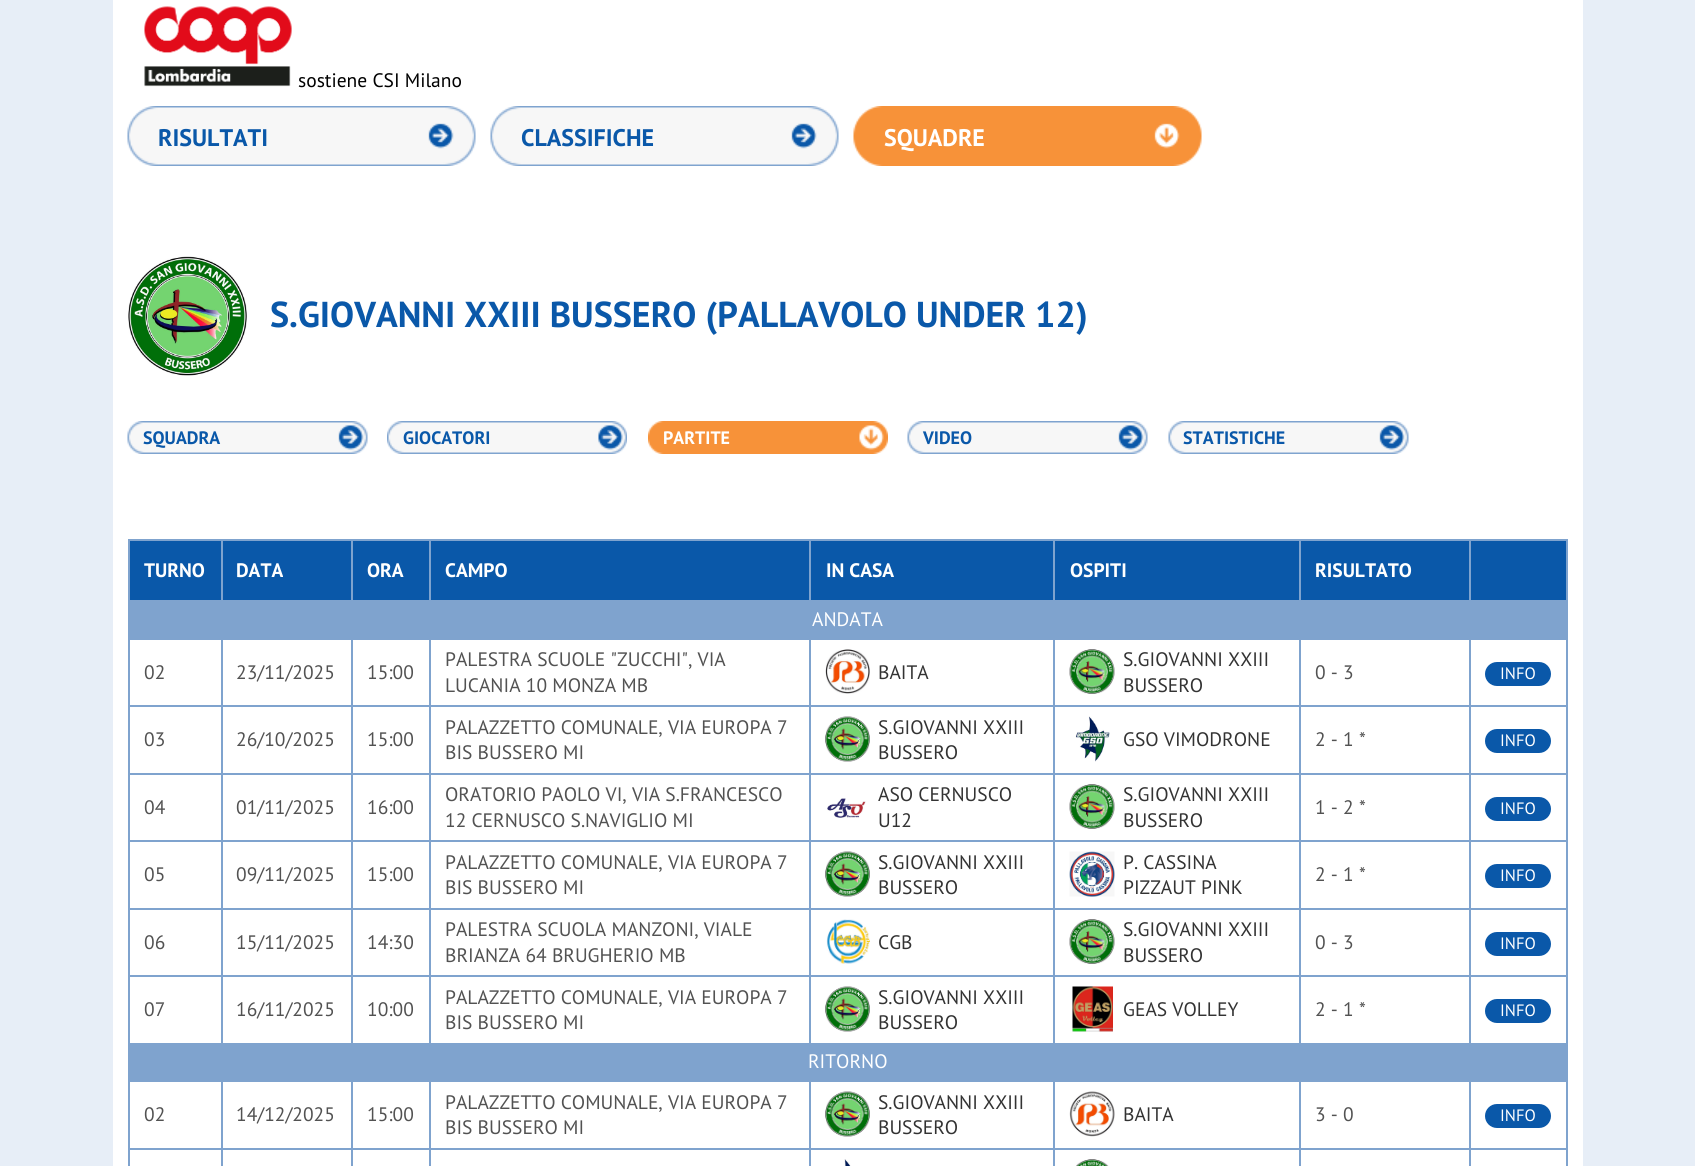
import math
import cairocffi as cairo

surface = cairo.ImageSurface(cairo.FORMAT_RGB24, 1695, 1166)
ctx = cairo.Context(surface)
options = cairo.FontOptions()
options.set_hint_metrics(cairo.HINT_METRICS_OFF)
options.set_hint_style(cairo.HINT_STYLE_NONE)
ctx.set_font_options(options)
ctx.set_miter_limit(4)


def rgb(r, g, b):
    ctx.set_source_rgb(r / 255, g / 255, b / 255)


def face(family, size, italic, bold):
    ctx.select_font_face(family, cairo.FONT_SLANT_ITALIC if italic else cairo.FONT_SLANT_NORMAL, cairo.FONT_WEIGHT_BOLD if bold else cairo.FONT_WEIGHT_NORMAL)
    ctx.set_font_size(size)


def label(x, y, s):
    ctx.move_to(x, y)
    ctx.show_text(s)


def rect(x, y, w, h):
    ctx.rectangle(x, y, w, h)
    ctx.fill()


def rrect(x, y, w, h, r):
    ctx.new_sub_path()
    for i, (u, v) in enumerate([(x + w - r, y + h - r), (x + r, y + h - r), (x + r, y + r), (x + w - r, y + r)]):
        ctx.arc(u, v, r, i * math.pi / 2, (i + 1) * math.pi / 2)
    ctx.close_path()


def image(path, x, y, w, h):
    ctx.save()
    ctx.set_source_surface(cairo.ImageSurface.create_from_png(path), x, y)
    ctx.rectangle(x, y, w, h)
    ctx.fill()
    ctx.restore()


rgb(231, 238, 247)
ctx.paint()
rgb(255, 255, 255)
rect(113, 0, 1470, 1166)
image('image0.png', 144, 6, 148, 81)
face('PT Sans', 19.5, 0, 0)
rgb(0, 0, 0)
label(298, 87, 'sostiene CSI Milano')
image('image1.png', 127, 106, 349, 60)
face('PT Sans', 24, 0, 1)
rgb(10, 88, 169)
label(158, 146, 'RISULTATI')
image('image2.png', 490, 106, 349, 60)
label(521, 146, 'CLASSIFICHE')
image('image3.png', 853, 106, 349, 60)
rgb(255, 255, 255)
label(884, 146, 'SQUADRE')
image('image4.png', 128, 256, 119, 120)
face('PT Sans', 36, 0, 1)
rgb(10, 88, 169)
label(270, 327, 'S.GIOVANNI XXIII BUSSERO (PALLAVOLO UNDER 12)')
image('image5.png', 127, 421, 241, 33)
face('PT Sans', 18, 0, 1)
label(143, 444, 'SQUADRA')
image('image6.png', 387, 421, 240, 33)
label(403, 444, 'GIOCATORI')
image('image7.png', 648, 421, 240, 33)
rgb(255, 255, 255)
label(663, 444, 'PARTITE')
image('image5.png', 907, 421, 241, 33)
rgb(10, 88, 169)
label(923, 444, 'VIDEO')
image('image8.png', 1168, 421, 241, 33)
label(1183, 444, 'STATISTICHE')
rgb(127, 163, 206)
rect(128, 539, 1440, 2)
rect(1566, 539, 2, 627)
rect(128, 539, 2, 627)
rgb(10, 88, 169)
rect(130, 541, 91, 59)
rgb(127, 163, 206)
rect(1469, 600, 99, 2)
rect(1469, 539, 2, 63)
rect(1299, 600, 171, 2)
rect(1299, 539, 2, 63)
rect(1053, 600, 248, 2)
rect(1053, 539, 2, 63)
rect(809, 600, 246, 2)
rect(809, 539, 2, 63)
rect(429, 600, 381, 2)
rect(429, 539, 2, 63)
rect(351, 600, 80, 2)
rect(351, 539, 2, 63)
rect(221, 600, 132, 2)
rect(221, 539, 2, 63)
rect(128, 600, 94, 2)
face('PT Sans', 19.5, 0, 1)
rgb(255, 255, 255)
label(144, 577, 'TURNO')
rgb(10, 88, 169)
rect(223, 541, 128, 59)
rgb(255, 255, 255)
label(236, 577, 'DATA')
rgb(10, 88, 169)
rect(353, 541, 76, 59)
rgb(255, 255, 255)
label(367, 577, 'ORA')
rgb(10, 88, 169)
rect(431, 541, 378, 59)
rgb(255, 255, 255)
label(445, 577, 'CAMPO')
rgb(10, 88, 169)
rect(811, 541, 242, 59)
rgb(255, 255, 255)
label(826, 577, 'IN CASA')
rgb(10, 88, 169)
rect(1055, 541, 244, 59)
rgb(255, 255, 255)
label(1070, 577, 'OSPITI')
rgb(10, 88, 169)
rect(1301, 541, 168, 59)
rgb(255, 255, 255)
label(1315, 577, 'RISULTATO')
rgb(10, 88, 169)
rect(1471, 541, 95, 59)
rgb(127, 163, 206)
rect(130, 602, 1436, 36)
face('PT Sans', 19.5, 0, 0)
rgb(255, 255, 255)
label(812, 626, 'ANDATA')
rgb(127, 163, 206)
rect(1469, 638, 99, 2)
rect(1469, 705, 99, 2)
rect(1469, 773, 99, 2)
rect(1469, 840, 99, 2)
rect(1469, 908, 99, 2)
rect(1469, 975, 99, 2)
rect(1469, 1043, 99, 2)
rect(1469, 975, 2, 69)
rect(1299, 975, 171, 2)
rect(1469, 908, 2, 69)
rect(1299, 908, 171, 2)
rect(1469, 840, 2, 69)
rect(1299, 840, 171, 2)
rect(1469, 773, 2, 69)
rect(1299, 773, 171, 2)
rect(1469, 705, 2, 69)
rect(1299, 705, 171, 2)
rect(1469, 638, 2, 69)
rect(1299, 638, 171, 2)
rect(1299, 1043, 171, 2)
rect(1299, 975, 2, 69)
rect(1053, 975, 248, 2)
rect(1299, 908, 2, 69)
rect(1053, 908, 248, 2)
rect(1299, 840, 2, 69)
rect(1053, 840, 248, 2)
rect(1299, 773, 2, 69)
rect(1053, 773, 248, 2)
rect(1299, 705, 2, 69)
rect(1053, 705, 248, 2)
rect(1299, 638, 2, 69)
rect(1053, 638, 248, 2)
rect(1053, 1043, 248, 2)
rect(1053, 975, 2, 69)
rect(809, 975, 246, 2)
rect(1053, 908, 2, 69)
rect(809, 908, 246, 2)
rect(1053, 840, 2, 69)
rect(809, 840, 246, 2)
rect(1053, 773, 2, 69)
rect(809, 773, 246, 2)
rect(1053, 705, 2, 69)
rect(809, 705, 246, 2)
rect(1053, 638, 2, 69)
rect(809, 638, 246, 2)
rect(809, 1043, 246, 2)
rect(809, 975, 2, 69)
rect(429, 975, 381, 2)
rect(809, 908, 2, 69)
rect(429, 908, 381, 2)
rect(809, 840, 2, 69)
rect(429, 840, 381, 2)
rect(809, 773, 2, 69)
rect(429, 773, 381, 2)
rect(809, 705, 2, 69)
rect(429, 705, 381, 2)
rect(809, 638, 2, 69)
rect(429, 638, 381, 2)
rect(429, 1043, 381, 2)
rect(429, 975, 2, 69)
rect(351, 975, 80, 2)
rect(429, 908, 2, 69)
rect(351, 908, 80, 2)
rect(429, 840, 2, 69)
rect(351, 840, 80, 2)
rect(429, 773, 2, 69)
rect(351, 773, 80, 2)
rect(429, 705, 2, 69)
rect(351, 705, 80, 2)
rect(429, 638, 2, 69)
rect(351, 638, 80, 2)
rect(351, 1043, 80, 2)
rect(351, 975, 2, 69)
rect(221, 975, 132, 2)
rect(351, 908, 2, 69)
rect(221, 908, 132, 2)
rect(351, 840, 2, 69)
rect(221, 840, 132, 2)
rect(351, 773, 2, 69)
rect(221, 773, 132, 2)
rect(351, 705, 2, 69)
rect(221, 705, 132, 2)
rect(351, 638, 2, 69)
rect(221, 638, 132, 2)
rect(221, 1043, 132, 2)
rect(221, 975, 2, 69)
rect(128, 975, 94, 2)
rect(221, 908, 2, 69)
rect(128, 908, 94, 2)
rect(221, 840, 2, 69)
rect(128, 840, 94, 2)
rect(221, 773, 2, 69)
rect(128, 773, 94, 2)
rect(221, 705, 2, 69)
rect(128, 705, 94, 2)
rect(221, 638, 2, 69)
rect(128, 638, 94, 2)
rgb(82, 82, 82)
label(144, 679, '02')
label(236, 679, '23/11/2025')
label(367, 679, '15:00')
label(445, 666, 'PALESTRA SCUOLE "ZUCCHI", VIA')
label(445, 692, 'LUCANIA 10 MONZA MB')
image('image9.png', 825, 649, 45, 45)
rgb(51, 51, 51)
label(878, 679, 'BAITA')
image('image10.png', 1069, 649, 46, 45)
label(1123, 666, 'S.GIOVANNI XXIII')
label(1123, 692, 'BUSSERO')
rgb(82, 82, 82)
label(1315, 679, '0 - 3')
rgb(10, 88, 169)
rrect(1485, 662, 66, 24, 12)
ctx.fill()
face('PT Sans', 16.5, 0, 0)
rgb(255, 255, 255)
label(1500, 679, 'INFO')
face('PT Sans', 19.5, 0, 0)
rgb(82, 82, 82)
label(144, 746, '03')
label(236, 746, '26/10/2025')
label(367, 746, '15:00')
label(445, 734, 'PALAZZETTO COMUNALE, VIA EUROPA 7')
label(445, 759, 'BIS BUSSERO MI')
image('image11.png', 825, 716, 45, 46)
rgb(51, 51, 51)
label(878, 734, 'S.GIOVANNI XXIII')
label(878, 759, 'BUSSERO')
image('image12.png', 1075, 716, 35, 46)
label(1123, 746, 'GSO VIMODRONE')
rgb(82, 82, 82)
label(1315, 746, '2 - 1 *')
rgb(10, 88, 169)
rrect(1485, 729, 66, 24, 12)
ctx.fill()
face('PT Sans', 16.5, 0, 0)
rgb(255, 255, 255)
label(1500, 746, 'INFO')
face('PT Sans', 19.5, 0, 0)
rgb(82, 82, 82)
label(144, 814, '04')
label(236, 814, '01/11/2025')
label(367, 814, '16:00')
label(445, 801, 'ORATORIO PAOLO VI, VIA S.FRANCESCO')
label(445, 827, '12 CERNUSCO S.NAVIGLIO MI')
image('image13.png', 827, 798, 39, 20)
rgb(51, 51, 51)
label(878, 801, 'ASO CERNUSCO')
label(878, 827, 'U12')
image('image10.png', 1069, 784, 46, 45)
label(1123, 801, 'S.GIOVANNI XXIII')
label(1123, 827, 'BUSSERO')
rgb(82, 82, 82)
label(1315, 814, '1 - 2 *')
rgb(10, 88, 169)
rrect(1485, 797, 66, 24, 12)
ctx.fill()
face('PT Sans', 16.5, 0, 0)
rgb(255, 255, 255)
label(1500, 814, 'INFO')
face('PT Sans', 19.5, 0, 0)
rgb(82, 82, 82)
label(144, 881, '05')
label(236, 881, '09/11/2025')
label(367, 881, '15:00')
label(445, 869, 'PALAZZETTO COMUNALE, VIA EUROPA 7')
label(445, 894, 'BIS BUSSERO MI')
image('image11.png', 825, 851, 45, 46)
rgb(51, 51, 51)
label(878, 869, 'S.GIOVANNI XXIII')
label(878, 894, 'BUSSERO')
image('image14.png', 1069, 851, 46, 46)
label(1123, 869, 'P. CASSINA')
label(1123, 894, 'PIZZAUT PINK')
rgb(82, 82, 82)
label(1315, 881, '2 - 1 *')
rgb(10, 88, 169)
rrect(1485, 864, 66, 24, 12)
ctx.fill()
face('PT Sans', 16.5, 0, 0)
rgb(255, 255, 255)
label(1500, 881, 'INFO')
face('PT Sans', 19.5, 0, 0)
rgb(82, 82, 82)
label(144, 949, '06')
label(236, 949, '15/11/2025')
label(367, 949, '14:30')
label(445, 936, 'PALESTRA SCUOLA MANZONI, VIALE')
label(445, 962, 'BRIANZA 64 BRUGHERIO MB')
image('image15.png', 826, 919, 44, 45)
rgb(51, 51, 51)
label(878, 949, 'CGB')
image('image10.png', 1069, 919, 46, 45)
label(1123, 936, 'S.GIOVANNI XXIII')
label(1123, 962, 'BUSSERO')
rgb(82, 82, 82)
label(1315, 949, '0 - 3')
rgb(10, 88, 169)
rrect(1485, 932, 66, 24, 12)
ctx.fill()
face('PT Sans', 16.5, 0, 0)
rgb(255, 255, 255)
label(1500, 949, 'INFO')
rgb(127, 163, 206)
rect(128, 1043, 94, 2)
face('PT Sans', 19.5, 0, 0)
rgb(82, 82, 82)
label(144, 1016, '07')
label(236, 1016, '16/11/2025')
label(367, 1016, '10:00')
label(445, 1004, 'PALAZZETTO COMUNALE, VIA EUROPA 7')
label(445, 1029, 'BIS BUSSERO MI')
image('image11.png', 825, 986, 45, 46)
rgb(51, 51, 51)
label(878, 1004, 'S.GIOVANNI XXIII')
label(878, 1029, 'BUSSERO')
image('image16.png', 1072, 986, 41, 46)
label(1123, 1016, 'GEAS VOLLEY')
rgb(82, 82, 82)
label(1315, 1016, '2 - 1 *')
rgb(10, 88, 169)
rrect(1485, 999, 66, 24, 12)
ctx.fill()
face('PT Sans', 16.5, 0, 0)
rgb(255, 255, 255)
label(1500, 1016, 'INFO')
rgb(127, 163, 206)
rect(130, 1045, 1436, 37)
face('PT Sans', 19.5, 0, 0)
rgb(255, 255, 255)
label(808, 1068, 'RITORNO')
rgb(82, 82, 82)
label(144, 1121, '02')
rgb(127, 163, 206)
rect(1469, 1148, 99, 2)
rect(1469, 1148, 2, 18)
rect(1299, 1148, 171, 2)
rect(1299, 1148, 2, 18)
rect(1053, 1148, 248, 2)
rect(1053, 1148, 2, 18)
rect(809, 1148, 246, 2)
rect(809, 1148, 2, 18)
rect(429, 1148, 381, 2)
rect(429, 1148, 2, 18)
rect(351, 1148, 80, 2)
rect(351, 1148, 2, 18)
rect(221, 1148, 132, 2)
rect(221, 1148, 2, 18)
rect(128, 1148, 94, 2)
rect(221, 1080, 2, 69)
rgb(82, 82, 82)
label(236, 1121, '14/12/2025')
rgb(127, 163, 206)
rect(351, 1080, 2, 69)
rgb(82, 82, 82)
label(367, 1121, '15:00')
rgb(127, 163, 206)
rect(429, 1080, 2, 69)
rgb(82, 82, 82)
label(445, 1109, 'PALAZZETTO COMUNALE, VIA EUROPA 7')
label(445, 1134, 'BIS BUSSERO MI')
rgb(127, 163, 206)
rect(809, 1080, 2, 69)
image('image11.png', 825, 1091, 45, 46)
rgb(51, 51, 51)
label(878, 1109, 'S.GIOVANNI XXIII')
label(878, 1134, 'BUSSERO')
rgb(127, 163, 206)
rect(1053, 1080, 2, 69)
image('image17.png', 1069, 1091, 46, 46)
rgb(51, 51, 51)
label(1123, 1121, 'BAITA')
rgb(127, 163, 206)
rect(1299, 1080, 2, 69)
rgb(82, 82, 82)
label(1315, 1121, '3 - 0')
rgb(127, 163, 206)
rect(1469, 1080, 2, 69)
rgb(10, 88, 169)
rrect(1485, 1104, 66, 24, 12)
ctx.fill()
face('PT Sans', 16.5, 0, 0)
rgb(255, 255, 255)
label(1500, 1121, 'INFO')
image('image18.png', 844, 1159, 7, 7)
image('image19.png', 1076, 1159, 33, 7)
surface.write_to_png('render.png')
